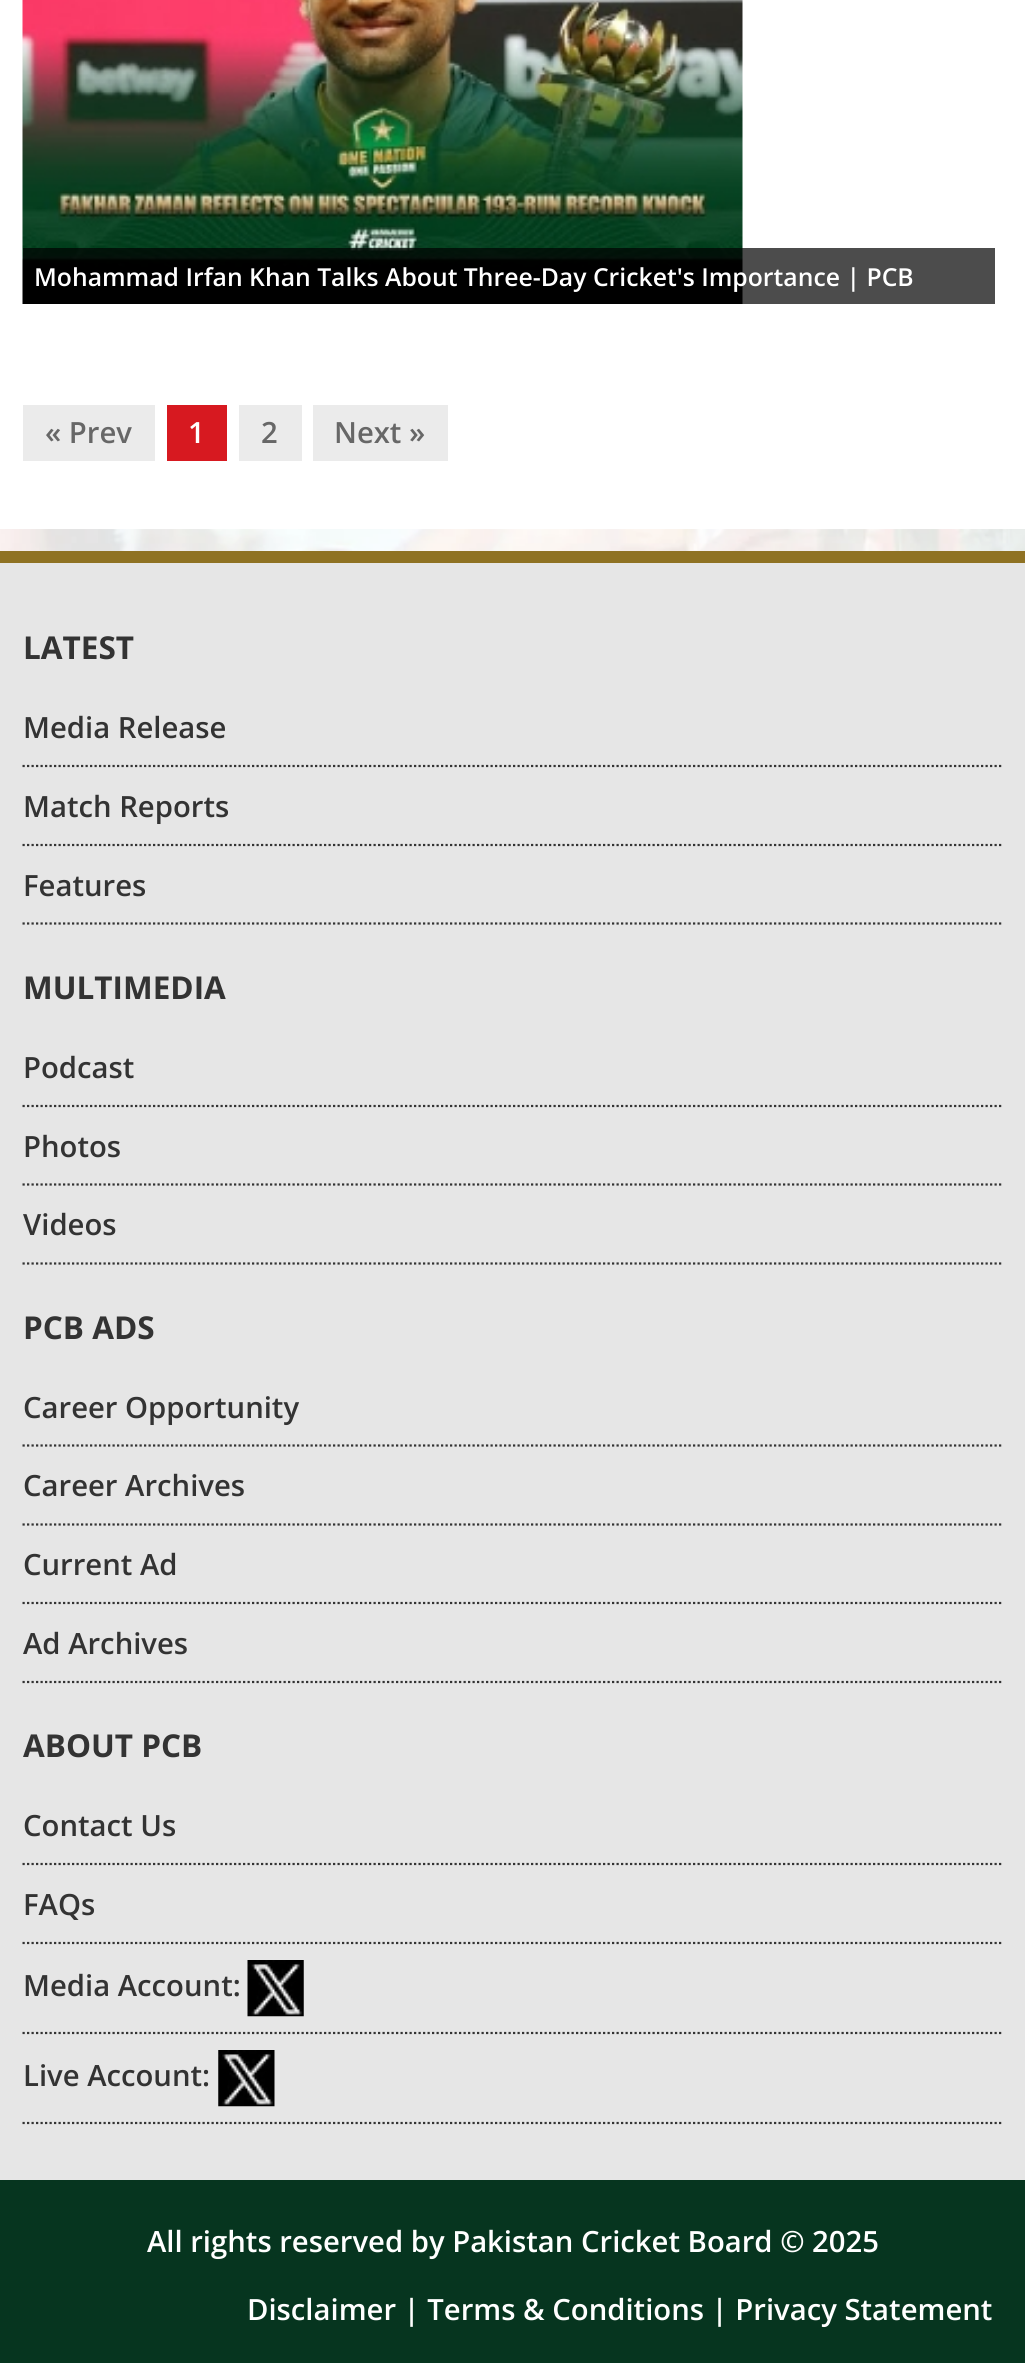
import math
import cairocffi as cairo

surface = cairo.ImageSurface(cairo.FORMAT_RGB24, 1025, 2363)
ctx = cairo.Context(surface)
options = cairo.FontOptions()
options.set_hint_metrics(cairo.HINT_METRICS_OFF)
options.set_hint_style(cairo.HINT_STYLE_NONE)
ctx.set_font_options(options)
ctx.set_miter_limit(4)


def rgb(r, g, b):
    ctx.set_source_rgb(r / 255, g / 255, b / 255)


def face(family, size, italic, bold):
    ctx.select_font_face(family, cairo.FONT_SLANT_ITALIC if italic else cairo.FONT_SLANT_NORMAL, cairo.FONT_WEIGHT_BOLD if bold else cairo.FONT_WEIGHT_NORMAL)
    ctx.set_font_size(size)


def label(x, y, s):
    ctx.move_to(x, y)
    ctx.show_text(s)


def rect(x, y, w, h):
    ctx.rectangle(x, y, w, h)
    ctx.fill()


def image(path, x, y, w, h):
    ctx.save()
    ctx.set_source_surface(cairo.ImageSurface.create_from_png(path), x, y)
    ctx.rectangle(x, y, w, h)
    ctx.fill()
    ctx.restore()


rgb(255, 255, 255)
ctx.paint()
image('image1.png', 0, 529, 1025, 22)
ctx.set_source_rgba(1, 1, 1, 0.15)
rect(0, 529, 1025, 22)
image('image0.png', 22, 0, 721, 304)
ctx.set_source_rgba(0, 0, 0, 0.7)
rect(23, 248, 972, 56)
face('Open Sans SemiBold', 24.75, 0, 0)
rgb(255, 255, 255)
label(34, 286, 'Mohammad Irfan Khan Talks About Three-Day Cricket\'s Importance | PCB')
rgb(235, 235, 235)
rect(23, 405, 132, 56)
face('Open Sans SemiBold', 29.25, 0, 0)
rgb(103, 103, 103)
label(45, 443, '« Prev')
rgb(215, 25, 32)
rect(167, 405, 60, 56)
rgb(255, 255, 255)
label(188, 443, '1')
rgb(235, 235, 235)
rect(239, 405, 63, 56)
rgb(103, 103, 103)
label(261, 443, '2')
rgb(235, 235, 235)
rect(313, 405, 135, 56)
rgb(103, 103, 103)
label(334, 443, 'Next »')
rgb(230, 230, 230)
rect(0, 563, 1025, 1617)
rgb(143, 114, 35)
rect(0, 551, 1025, 12)
face('Open Sans', 31.5, 0, 1)
rgb(51, 51, 51)
label(23, 659, 'LATEST')
ctx.new_path()
ctx.move_to(22.5, 766)
ctx.line_to(1003.5, 766)
ctx.set_line_width(2.2)
ctx.set_dash([2.25, 2.25])
ctx.stroke()
face('Open Sans SemiBold', 29.25, 0, 0)
label(23, 738, 'Media Release')
ctx.new_path()
ctx.move_to(22.5, 845)
ctx.line_to(1003.5, 845)
ctx.stroke()
label(23, 817, 'Match Reports')
ctx.new_path()
ctx.move_to(22.5, 923.5)
ctx.line_to(1003.5, 923.5)
ctx.stroke()
label(23, 896, 'Features')
face('Open Sans', 31.5, 0, 1)
label(23, 999, 'MULTIMEDIA')
ctx.new_path()
ctx.move_to(22.5, 1106)
ctx.line_to(1003.5, 1106)
ctx.stroke()
face('Open Sans SemiBold', 29.25, 0, 0)
label(23, 1078, 'Podcast')
ctx.new_path()
ctx.move_to(22.5, 1184.5)
ctx.line_to(1003.5, 1184.5)
ctx.stroke()
label(23, 1157, 'Photos')
ctx.new_path()
ctx.move_to(22.5, 1263.5)
ctx.line_to(1003.5, 1263.5)
ctx.stroke()
label(23, 1235, 'Videos')
face('Open Sans', 31.5, 0, 1)
label(23, 1339, 'PCB ADS')
ctx.new_path()
ctx.move_to(22.5, 1445.5)
ctx.line_to(1003.5, 1445.5)
ctx.stroke()
face('Open Sans SemiBold', 29.25, 0, 0)
label(23, 1418, 'Career Opportunity')
ctx.new_path()
ctx.move_to(22.5, 1524.5)
ctx.line_to(1003.5, 1524.5)
ctx.stroke()
label(23, 1496, 'Career Archives')
ctx.new_path()
ctx.move_to(22.5, 1603)
ctx.line_to(1003.5, 1603)
ctx.stroke()
label(23, 1575, 'Current Ad')
ctx.new_path()
ctx.move_to(22.5, 1682)
ctx.line_to(1003.5, 1682)
ctx.stroke()
label(23, 1654, 'Ad Archives')
face('Open Sans', 31.5, 0, 1)
label(23, 1757, 'ABOUT PCB')
ctx.new_path()
ctx.move_to(22.5, 1864)
ctx.line_to(1003.5, 1864)
ctx.stroke()
face('Open Sans SemiBold', 29.25, 0, 0)
label(23, 1836, 'Contact Us')
ctx.new_path()
ctx.move_to(22.5, 1943)
ctx.line_to(1003.5, 1943)
ctx.stroke()
label(23, 1915, 'FAQs')
ctx.new_path()
ctx.move_to(22.5, 2033)
ctx.line_to(1003.5, 2033)
ctx.stroke()
label(23, 1996, 'Media Account:')
image('image2.png', 247, 1960, 57, 57)
ctx.new_path()
ctx.move_to(22.5, 2123)
ctx.line_to(1003.5, 2123)
ctx.stroke()
label(23, 2086, 'Live Account:')
image('image3.png', 218, 2050, 57, 57)
rgb(6, 53, 31)
rect(0, 2180, 1025, 183)
rgb(255, 255, 255)
label(147, 2252, 'All rights reserved by Pakistan Cricket Board © 2025')
label(247, 2320, 'Disclaimer | Terms & Conditions | Privacy Statement')
surface.write_to_png('render.png')
